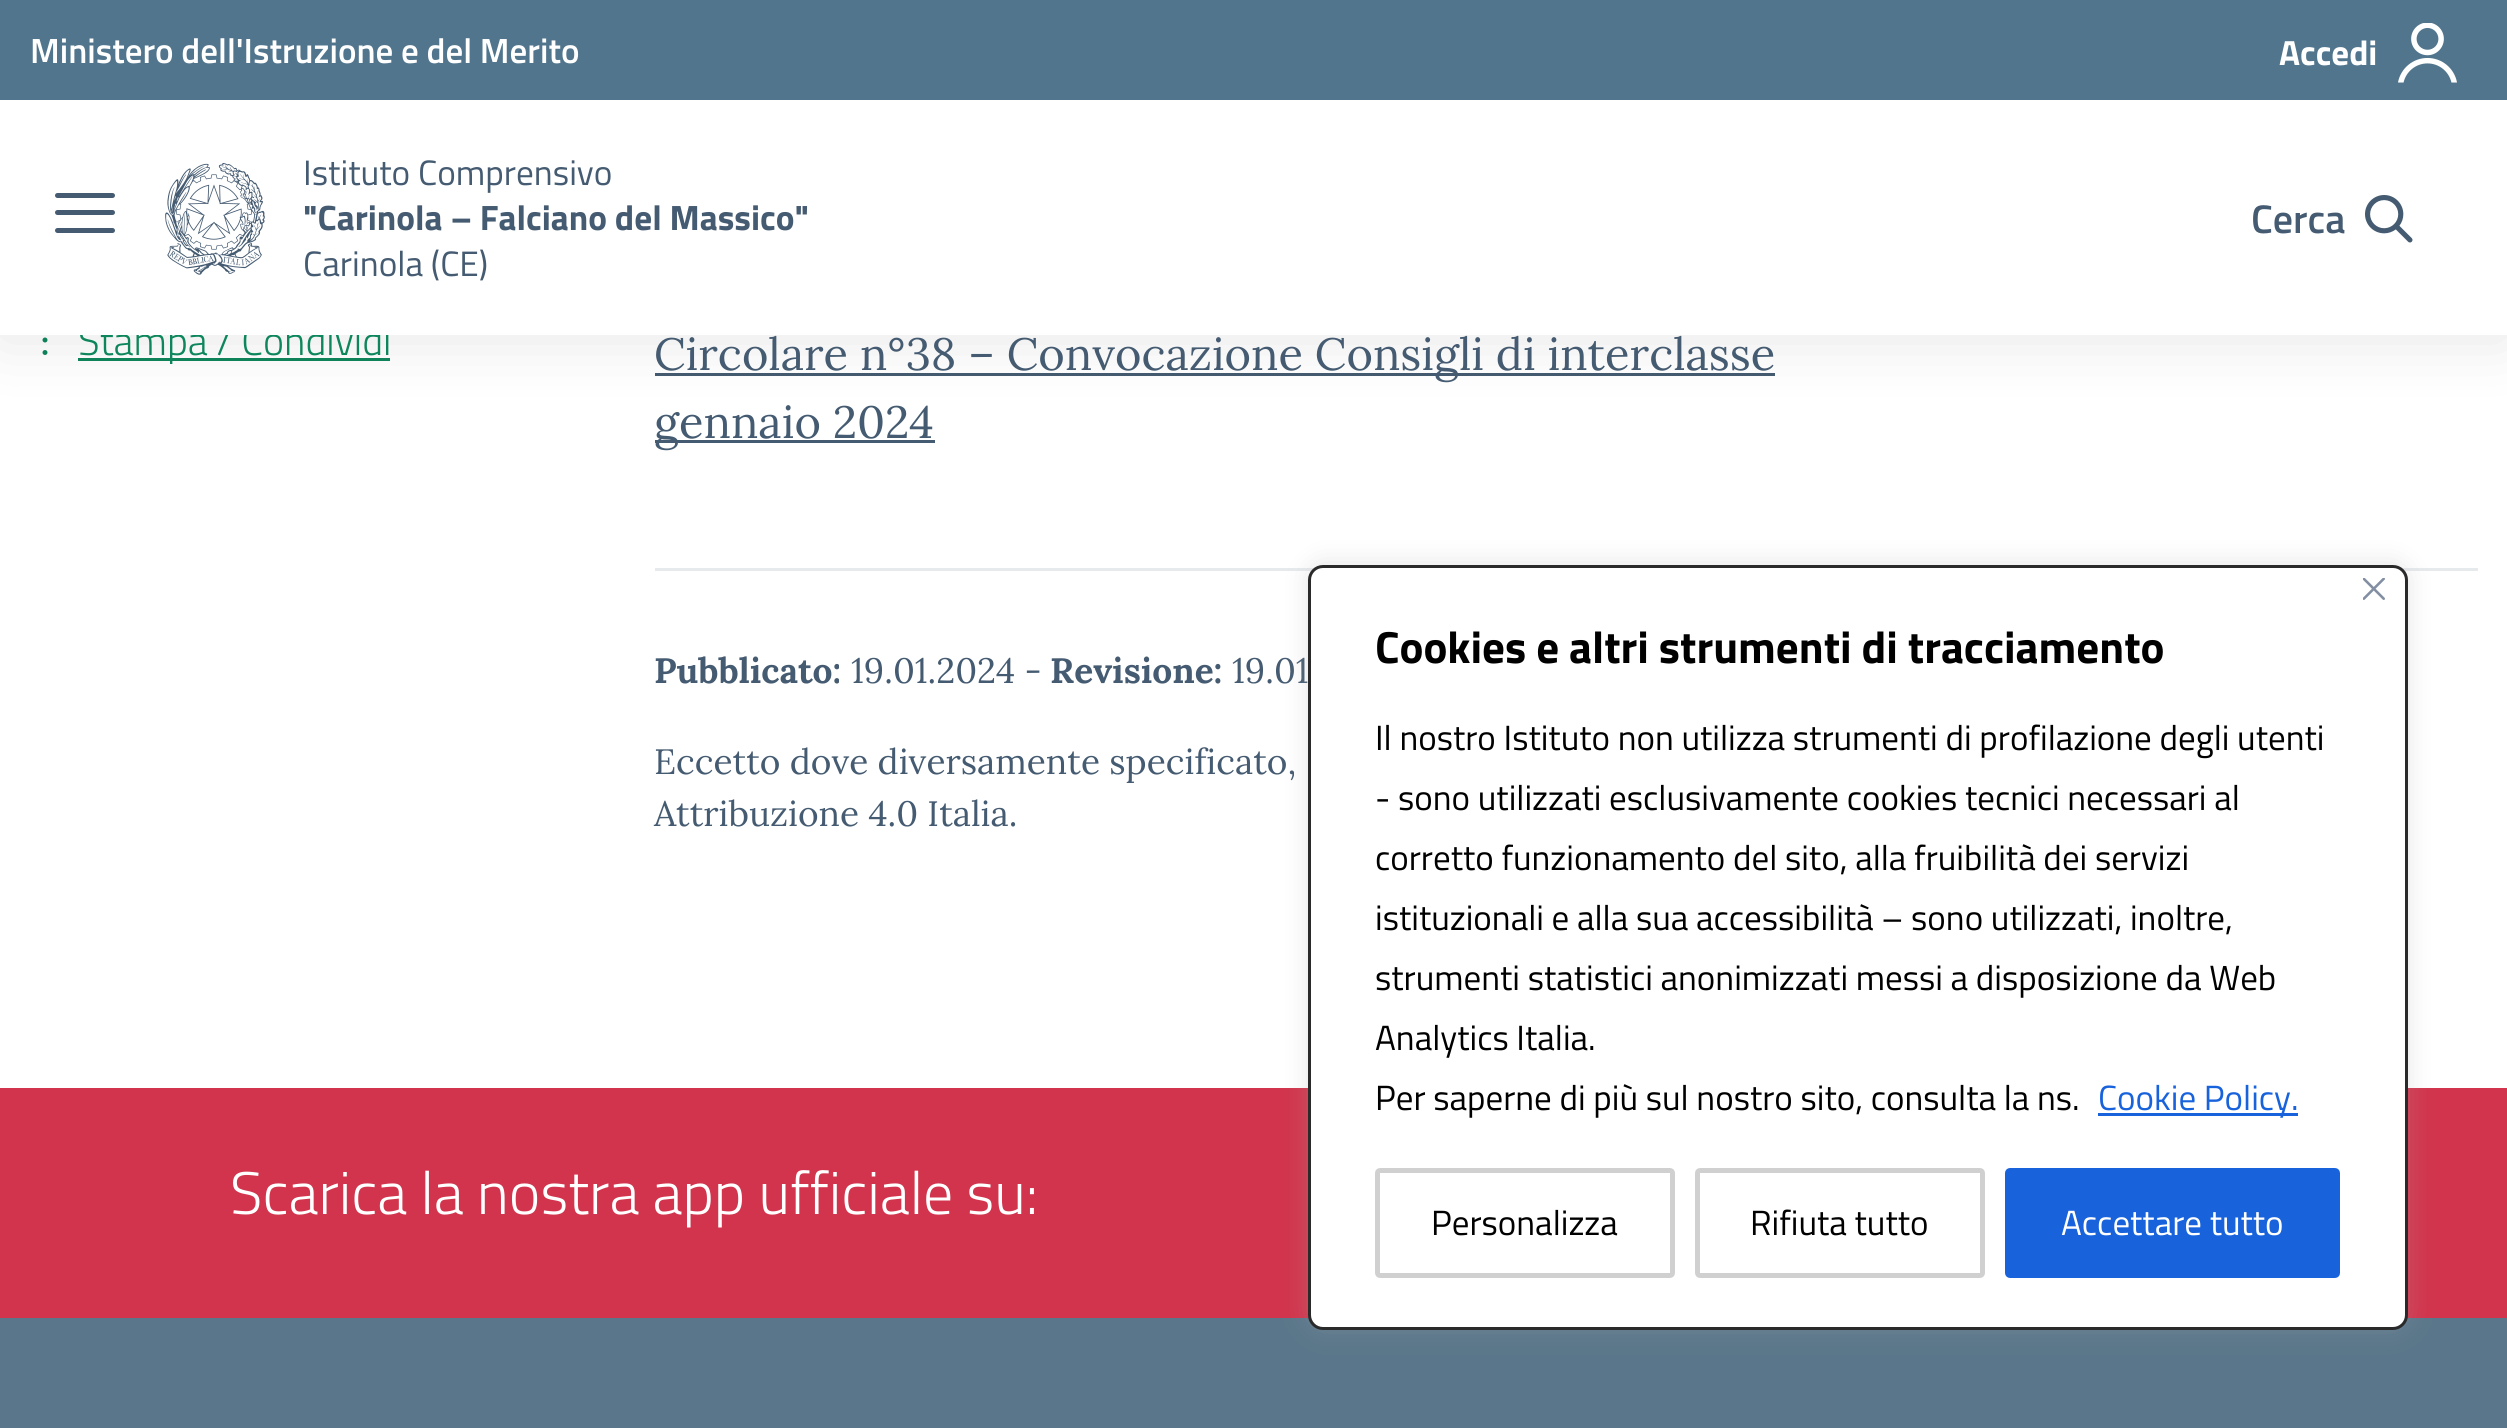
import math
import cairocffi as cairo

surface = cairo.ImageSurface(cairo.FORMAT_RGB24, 2507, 1428)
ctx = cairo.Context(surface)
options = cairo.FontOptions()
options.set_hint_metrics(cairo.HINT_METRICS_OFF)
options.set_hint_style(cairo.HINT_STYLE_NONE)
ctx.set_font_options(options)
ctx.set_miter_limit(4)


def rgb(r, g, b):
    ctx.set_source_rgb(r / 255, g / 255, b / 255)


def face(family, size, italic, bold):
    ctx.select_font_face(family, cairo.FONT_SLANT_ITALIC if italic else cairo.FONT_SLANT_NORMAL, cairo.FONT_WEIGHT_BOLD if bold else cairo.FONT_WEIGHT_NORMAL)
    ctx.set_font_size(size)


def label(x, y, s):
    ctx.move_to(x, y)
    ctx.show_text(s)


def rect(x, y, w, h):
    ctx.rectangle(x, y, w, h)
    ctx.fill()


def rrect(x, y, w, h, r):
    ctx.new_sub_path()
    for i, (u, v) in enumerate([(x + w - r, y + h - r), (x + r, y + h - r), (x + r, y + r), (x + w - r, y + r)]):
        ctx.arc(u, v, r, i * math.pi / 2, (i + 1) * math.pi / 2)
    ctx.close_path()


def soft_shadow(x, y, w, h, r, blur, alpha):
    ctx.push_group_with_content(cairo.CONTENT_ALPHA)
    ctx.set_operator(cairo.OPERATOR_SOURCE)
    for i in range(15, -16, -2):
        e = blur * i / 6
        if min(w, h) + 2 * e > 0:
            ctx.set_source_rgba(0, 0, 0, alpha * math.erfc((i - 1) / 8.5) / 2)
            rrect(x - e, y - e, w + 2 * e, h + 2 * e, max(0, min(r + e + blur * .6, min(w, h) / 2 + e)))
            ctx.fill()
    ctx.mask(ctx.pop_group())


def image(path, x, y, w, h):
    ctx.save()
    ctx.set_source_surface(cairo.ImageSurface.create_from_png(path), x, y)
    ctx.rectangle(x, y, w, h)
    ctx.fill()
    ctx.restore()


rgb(255, 255, 255)
ctx.paint()
image('image3.png', 42, 337, 6, 18)
rgb(14, 134, 92)
rect(78, 358, 312, 3)
rgb(69, 91, 113)
rect(655, 373, 1120, 3)
rgb(0, 0, 0)
soft_shadow(0, 5, 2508, 335, 0, 31, 0.1)
face('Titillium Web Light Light', 40, 0, 0)
rgb(14, 134, 92)
label(78, 355, 'Stampa / Condividi')
rgb(255, 255, 255)
rect(0, 100, 2507, 235)
rgb(81, 117, 141)
rect(0, 0, 2507, 100)
face('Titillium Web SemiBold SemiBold', 35, 0, 0)
rgb(255, 255, 255)
label(30, 63, 'Ministero dell\'Istruzione e del Merito')
face('Titillium Web', 35, 0, 1)
label(2279, 65, 'Accedi')
image('image0.png', 2398, 23, 59, 60)
rgb(69, 91, 113)
rrect(55, 210, 60, 5, 2.5)
ctx.fill()
rrect(55, 193, 60, 5, 2.5)
ctx.fill()
rrect(55, 228, 60, 5, 2.5)
ctx.fill()
image('image1.png', 165, 163, 100, 112)
face('Titillium Web', 35.25, 0, 0)
label(303, 185, 'Istituto Comprensivo')
face('Titillium Web', 35.25, 0, 1)
label(303, 230, '"Carinola – Falciano del Massico"')
face('Titillium Web', 35.25, 0, 0)
label(303, 276, 'Carinola (CE)')
face('Titillium Web SemiBold SemiBold', 40, 0, 0)
label(2251, 233, 'Cerca')
image('image2.png', 2365, 195, 48, 48)
face('Lora', 45.2, 0, 0)
label(654, 370, 'Circolare n°38 – Convocazione Consigli di interclasse')
rect(655, 440, 280, 3)
label(654, 438, 'gennaio 2024')
rgb(231, 234, 237)
rect(655, 568, 1823, 3)
face('Lora', 35.25, 0, 1)
rgb(69, 91, 113)
label(654, 683, 'Pubblicato:')
face('Lora', 35.25, 0, 0)
label(851, 683, '19.01.2024 -')
face('Lora', 35.25, 0, 1)
label(1050, 683, 'Revisione:')
face('Lora', 35.25, 0, 0)
label(1232, 683, '19.01')
label(654, 774, 'Eccetto dove diversamente specificato,')
label(654, 826, 'Attribuzione 4.0 Italia.')
rgb(209, 52, 76)
rect(0, 1088, 2507, 230)
face('Titillium Web Light Light', 60, 0, 0)
rgb(255, 255, 255)
label(230, 1214, 'Scarica la nostra app ufficiale su:')
rgb(90, 118, 138)
rect(0, 1318, 2507, 110)
rgb(172, 171, 171)
soft_shadow(1308, 563, 1100, 765, 15, 12.5, 0.3)
rgb(255, 255, 255)
rrect(1309.5, 566.5, 1097, 762, 13.5)
ctx.fill_preserve()
rgb(42, 42, 42)
ctx.set_line_width(3)
ctx.stroke()
image('image4.png', 2363, 578, 22, 22)
face('Titillium Web', 45, 0, 1)
rgb(0, 0, 0)
label(1375, 663, 'Cookies e altri strumenti di tracciamento')
face('Titillium Web', 35, 0, 0)
label(1375, 750, 'Il nostro Istituto non utilizza strumenti di profilazione degli utenti')
label(1375, 810, '- sono utilizzati esclusivamente cookies tecnici necessari al')
label(1375, 870, 'corretto funzionamento del sito, alla fruibilità dei servizi')
label(1375, 930, 'istituzionali e alla sua accessibilità – sono utilizzati, inoltre,')
label(1375, 990, 'strumenti statistici anonimizzati messi a disposizione da Web')
label(1375, 1050, 'Analytics Italia.')
label(1375, 1110, 'Per saperne di più sul nostro sito, consulta la ns.')
rgb(24, 99, 220)
rect(2098, 1113, 200, 3)
label(2098, 1110, 'Cookie Policy.')
rrect(1377.5, 1170.5, 295, 105, 2.5)
rgb(208, 208, 208)
ctx.set_line_width(5)
ctx.stroke()
rgb(0, 0, 0)
label(1431, 1235, 'Personalizza')
rrect(1697.5, 1170.5, 285, 105, 2.5)
rgb(208, 208, 208)
ctx.stroke()
rgb(0, 0, 0)
label(1750, 1235, 'Rifiuta tutto')
rgb(24, 99, 220)
rrect(2007.5, 1170.5, 330, 105, 2.5)
ctx.fill_preserve()
ctx.stroke()
rgb(255, 255, 255)
label(2061, 1235, 'Accettare tutto')
surface.write_to_png('render.png')
